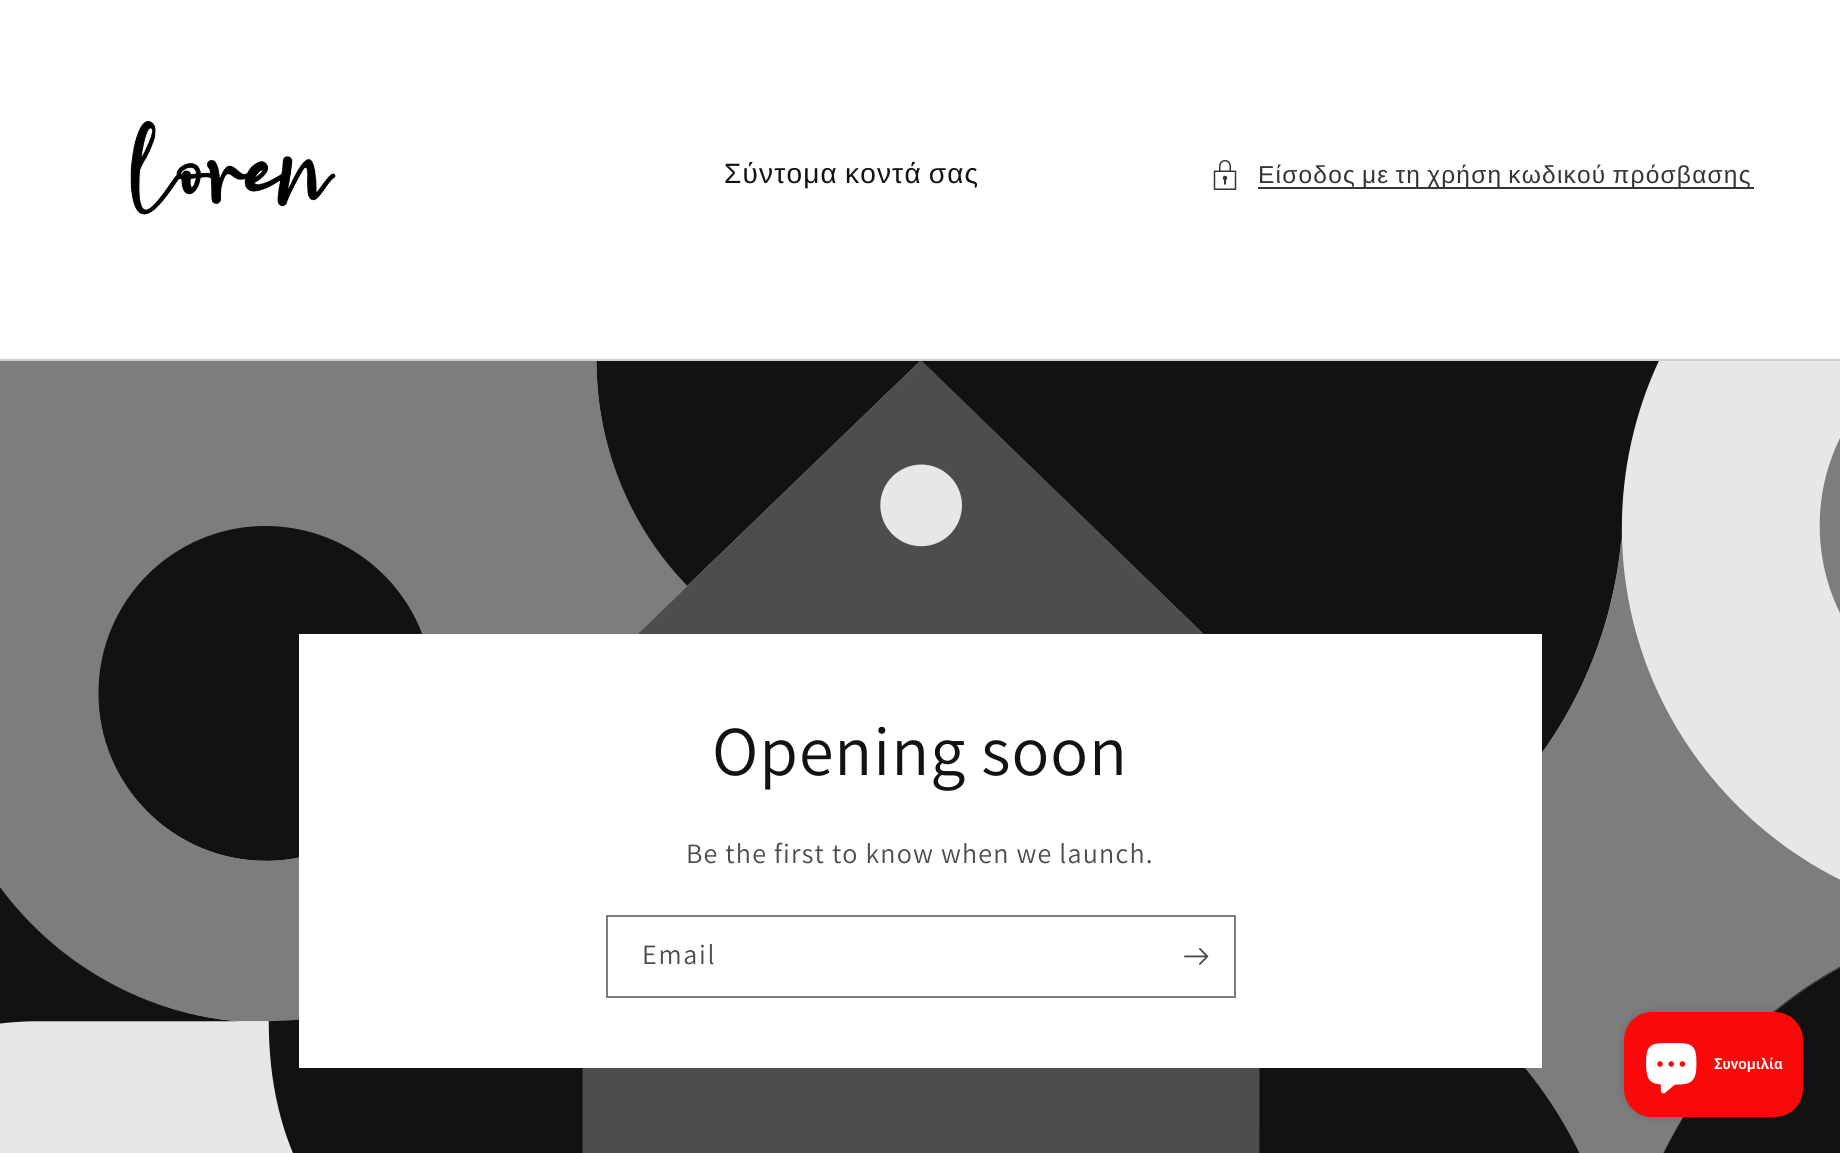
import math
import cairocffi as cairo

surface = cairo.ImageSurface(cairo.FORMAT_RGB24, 1840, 1153)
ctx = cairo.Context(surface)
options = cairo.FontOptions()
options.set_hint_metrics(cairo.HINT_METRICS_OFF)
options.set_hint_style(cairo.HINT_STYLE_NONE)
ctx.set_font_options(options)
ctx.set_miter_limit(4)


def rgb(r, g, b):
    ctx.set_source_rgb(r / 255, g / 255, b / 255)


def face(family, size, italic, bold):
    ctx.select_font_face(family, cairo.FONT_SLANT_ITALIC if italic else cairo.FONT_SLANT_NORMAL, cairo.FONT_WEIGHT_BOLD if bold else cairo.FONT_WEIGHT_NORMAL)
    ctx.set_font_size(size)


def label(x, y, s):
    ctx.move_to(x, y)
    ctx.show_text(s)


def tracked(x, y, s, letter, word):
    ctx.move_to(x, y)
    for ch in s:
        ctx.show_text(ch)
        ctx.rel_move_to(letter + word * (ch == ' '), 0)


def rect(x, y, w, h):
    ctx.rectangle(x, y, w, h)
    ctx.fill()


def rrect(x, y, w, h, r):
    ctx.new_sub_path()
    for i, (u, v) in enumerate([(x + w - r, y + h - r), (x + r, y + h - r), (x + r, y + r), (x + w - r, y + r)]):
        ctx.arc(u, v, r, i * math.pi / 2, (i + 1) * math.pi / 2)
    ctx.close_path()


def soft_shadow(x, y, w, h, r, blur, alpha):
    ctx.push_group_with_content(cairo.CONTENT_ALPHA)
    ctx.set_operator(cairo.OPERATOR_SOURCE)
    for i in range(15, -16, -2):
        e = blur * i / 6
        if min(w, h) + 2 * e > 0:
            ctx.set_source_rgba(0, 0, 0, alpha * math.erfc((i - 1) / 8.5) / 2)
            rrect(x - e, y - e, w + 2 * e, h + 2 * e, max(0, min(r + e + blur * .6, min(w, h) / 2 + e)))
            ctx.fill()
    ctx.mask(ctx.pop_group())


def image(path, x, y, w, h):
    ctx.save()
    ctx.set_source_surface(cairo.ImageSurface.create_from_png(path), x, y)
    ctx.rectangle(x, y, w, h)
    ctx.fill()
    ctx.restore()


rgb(255, 255, 255)
ctx.paint()
image('image0.png', 130, 120, 206, 95)
face('Liberation Sans', 28, 0, 0)
rgb(18, 18, 18)
tracked(724, 183, 'Σύντομα κοντά σας', 1.2, -2)
image('image1.png', 1213, 160, 24, 30)
rgb(54, 54, 54)
rect(1258, 187, 496, 2)
face('Liberation Sans', 24.5, 0, 0)
rgb(53, 53, 53)
tracked(1258, 183, 'Είσοδος με τη χρήση κωδικού πρόσβασης', 1.2, -2)
rgb(208, 208, 208)
rect(0, 359, 1840, 2)
image('image2.png', 0, 361, 1840, 792)
rgb(255, 255, 255)
rect(299, 634, 1243, 434)
face('Assistant', 70, 0, 0)
rgb(18, 18, 18)
tracked(712, 775, 'Opening soon', 1, 0)
face('Assistant', 28, 0, 0)
rgb(77, 77, 77)
tracked(686, 863, 'Be the first to know when we launch.', 1.2, 0)
ctx.rectangle(607, 916, 628, 81)
rgb(125, 125, 125)
ctx.stroke()
rgb(77, 77, 77)
tracked(642, 964, 'Email', 1.75, 0)
image('image3.png', 1184, 948, 25, 17)
rgb(0, 0, 0)
soft_shadow(1624, 1012, 179, 105, 28, 4.5, 0.15)
rgb(249, 9, 9)
rrect(1624, 1012, 179, 105, 28)
ctx.fill()
image('image4.png', 1646, 1043, 51, 51)
face('Roboto SemiBold', 15, 0, 0)
rgb(255, 255, 255)
label(1714, 1069, 'Συνομιλία')
surface.write_to_png('render.png')
